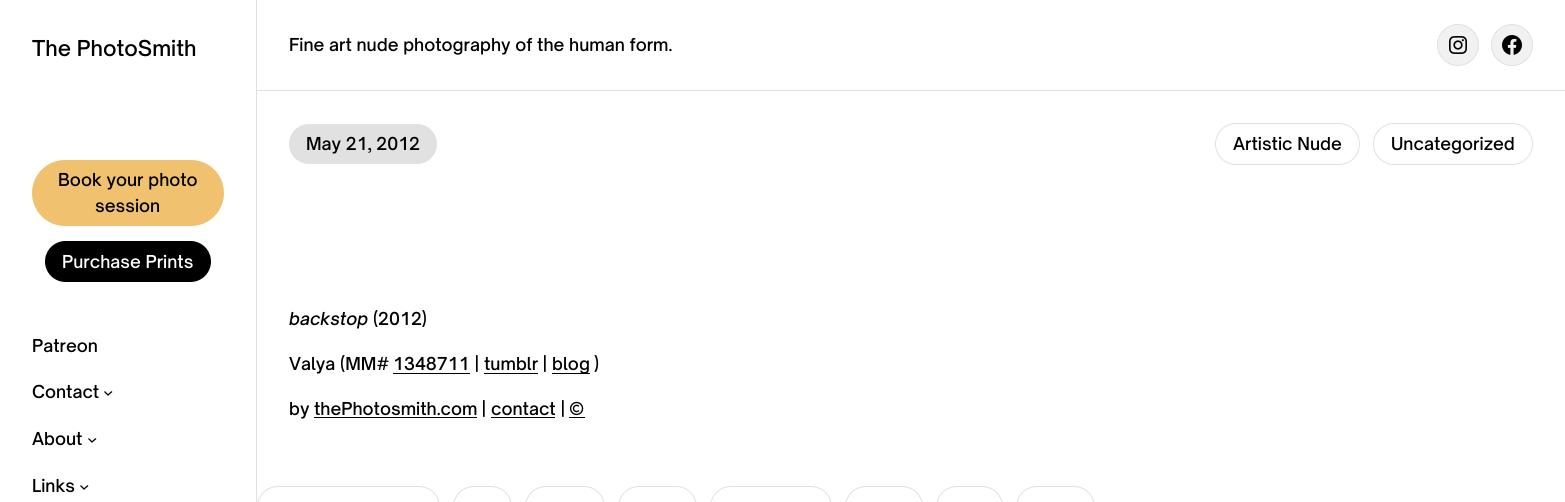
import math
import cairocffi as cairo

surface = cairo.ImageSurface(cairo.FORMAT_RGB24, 1565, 502)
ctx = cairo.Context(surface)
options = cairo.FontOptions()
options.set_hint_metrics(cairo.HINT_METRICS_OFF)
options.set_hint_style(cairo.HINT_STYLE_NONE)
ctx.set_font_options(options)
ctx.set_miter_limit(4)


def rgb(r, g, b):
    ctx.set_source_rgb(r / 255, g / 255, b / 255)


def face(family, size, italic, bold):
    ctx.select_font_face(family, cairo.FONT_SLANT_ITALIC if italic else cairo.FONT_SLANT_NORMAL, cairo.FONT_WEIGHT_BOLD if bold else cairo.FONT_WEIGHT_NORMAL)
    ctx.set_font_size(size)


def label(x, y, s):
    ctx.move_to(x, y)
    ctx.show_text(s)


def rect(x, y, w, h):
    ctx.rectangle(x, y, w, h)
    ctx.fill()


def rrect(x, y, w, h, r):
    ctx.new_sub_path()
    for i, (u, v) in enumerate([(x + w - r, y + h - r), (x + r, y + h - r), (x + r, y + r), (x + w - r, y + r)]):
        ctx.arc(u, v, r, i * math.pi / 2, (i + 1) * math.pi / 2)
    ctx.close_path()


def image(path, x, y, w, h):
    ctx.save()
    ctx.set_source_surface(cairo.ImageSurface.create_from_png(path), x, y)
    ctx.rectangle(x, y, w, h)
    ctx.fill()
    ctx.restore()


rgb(255, 255, 255)
ctx.paint()
rgb(225, 225, 225)
rect(256, 0, 1, 502)
face('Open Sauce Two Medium', 21, 0, 0)
rgb(0, 0, 0)
label(32, 56, 'The PhotoSmith')
rgb(240, 194, 111)
rrect(32, 160, 192, 66, 33)
ctx.fill()
face('Open Sauce Two Medium', 17.1, 0, 0)
rgb(0, 0, 0)
label(58, 186, 'Book your photo')
label(95, 212, 'session')
rrect(45, 241, 166, 41, 20.5)
ctx.fill()
rgb(255, 255, 255)
label(62, 268, 'Purchase Prints')
rgb(0, 0, 0)
label(32, 352, 'Patreon')
label(32, 398, 'Contact')
ctx.new_path()
ctx.move_to(104.5, 391.5)
ctx.line_to(108, 395)
ctx.line_to(112, 391.5)
ctx.set_line_width(1.3)
ctx.stroke()
label(32, 445, 'About')
ctx.new_path()
ctx.move_to(88.5, 438.5)
ctx.line_to(92, 442)
ctx.line_to(96, 438.5)
ctx.stroke()
label(32, 492, 'Links')
ctx.new_path()
ctx.move_to(80.5, 485.5)
ctx.line_to(84, 489)
ctx.line_to(88, 485.5)
ctx.stroke()
rgb(225, 225, 225)
rect(257, 90, 1308, 1)
rgb(0, 0, 0)
label(289, 51, 'Fine art nude photography of the human form.')
rgb(241, 241, 241)
ctx.new_path()
ctx.arc(1458, 45, 20.5, 0, 2 * math.pi)
ctx.fill_preserve()
rgb(225, 225, 225)
ctx.set_line_width(1)
ctx.stroke()
image('image0.png', 1449, 36, 18, 18)
rgb(241, 241, 241)
ctx.arc(1512, 45, 20.5, 0, 2 * math.pi)
ctx.fill_preserve()
rgb(225, 225, 225)
ctx.stroke()
image('image1.png', 1502, 35, 20, 20)
rrect(289, 124, 148, 40, 20)
ctx.fill()
rgb(0, 0, 0)
label(306, 150, 'May 21, 2012')
rrect(1215.5, 123.5, 144, 41, 20.5)
rgb(225, 225, 225)
ctx.stroke()
rgb(0, 0, 0)
label(1233, 150, 'Artistic Nude')
rrect(1373.5, 123.5, 159, 41, 20.5)
rgb(225, 225, 225)
ctx.stroke()
rgb(0, 0, 0)
label(1391, 150, 'Uncategorized')
face('Open Sauce Two Medium', 17.1, 1, 0)
label(289, 325, 'backstop')
face('Open Sauce Two Medium', 17.1, 0, 0)
label(373, 325, '(2012)')
label(289, 370, 'Valya (MM#')
label(393, 370, '1348711')
rect(393, 373, 77, 1)
label(474, 370, '|')
label(484, 370, 'tumblr')
rect(484, 373, 54, 1)
label(542, 370, '|')
rect(552, 373, 38, 1)
label(552, 370, 'blog')
label(594, 370, ')')
label(289, 415, 'by')
label(314, 415, 'thePhotosmith.com')
rect(314, 417, 163, 1)
label(481, 415, '|')
label(491, 415, 'contact')
rect(491, 417, 64, 1)
label(560, 415, '|')
label(569, 415, '©')
rect(569, 417, 16, 1)
rrect(257.5, 486.5, 182, 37, 20.5)
rgb(225, 225, 225)
ctx.stroke()
rrect(453.5, 486.5, 58, 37, 20.5)
ctx.stroke()
rrect(525.5, 486.5, 79, 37, 20.5)
ctx.stroke()
rrect(618.5, 486.5, 78, 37, 20.5)
ctx.stroke()
rrect(710.5, 486.5, 121, 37, 20.5)
ctx.stroke()
rrect(845.5, 486.5, 77, 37, 20.5)
ctx.stroke()
rrect(936.5, 486.5, 66, 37, 20.5)
ctx.stroke()
rrect(1016.5, 486.5, 78, 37, 20.5)
ctx.stroke()
surface.write_to_png('render.png')
